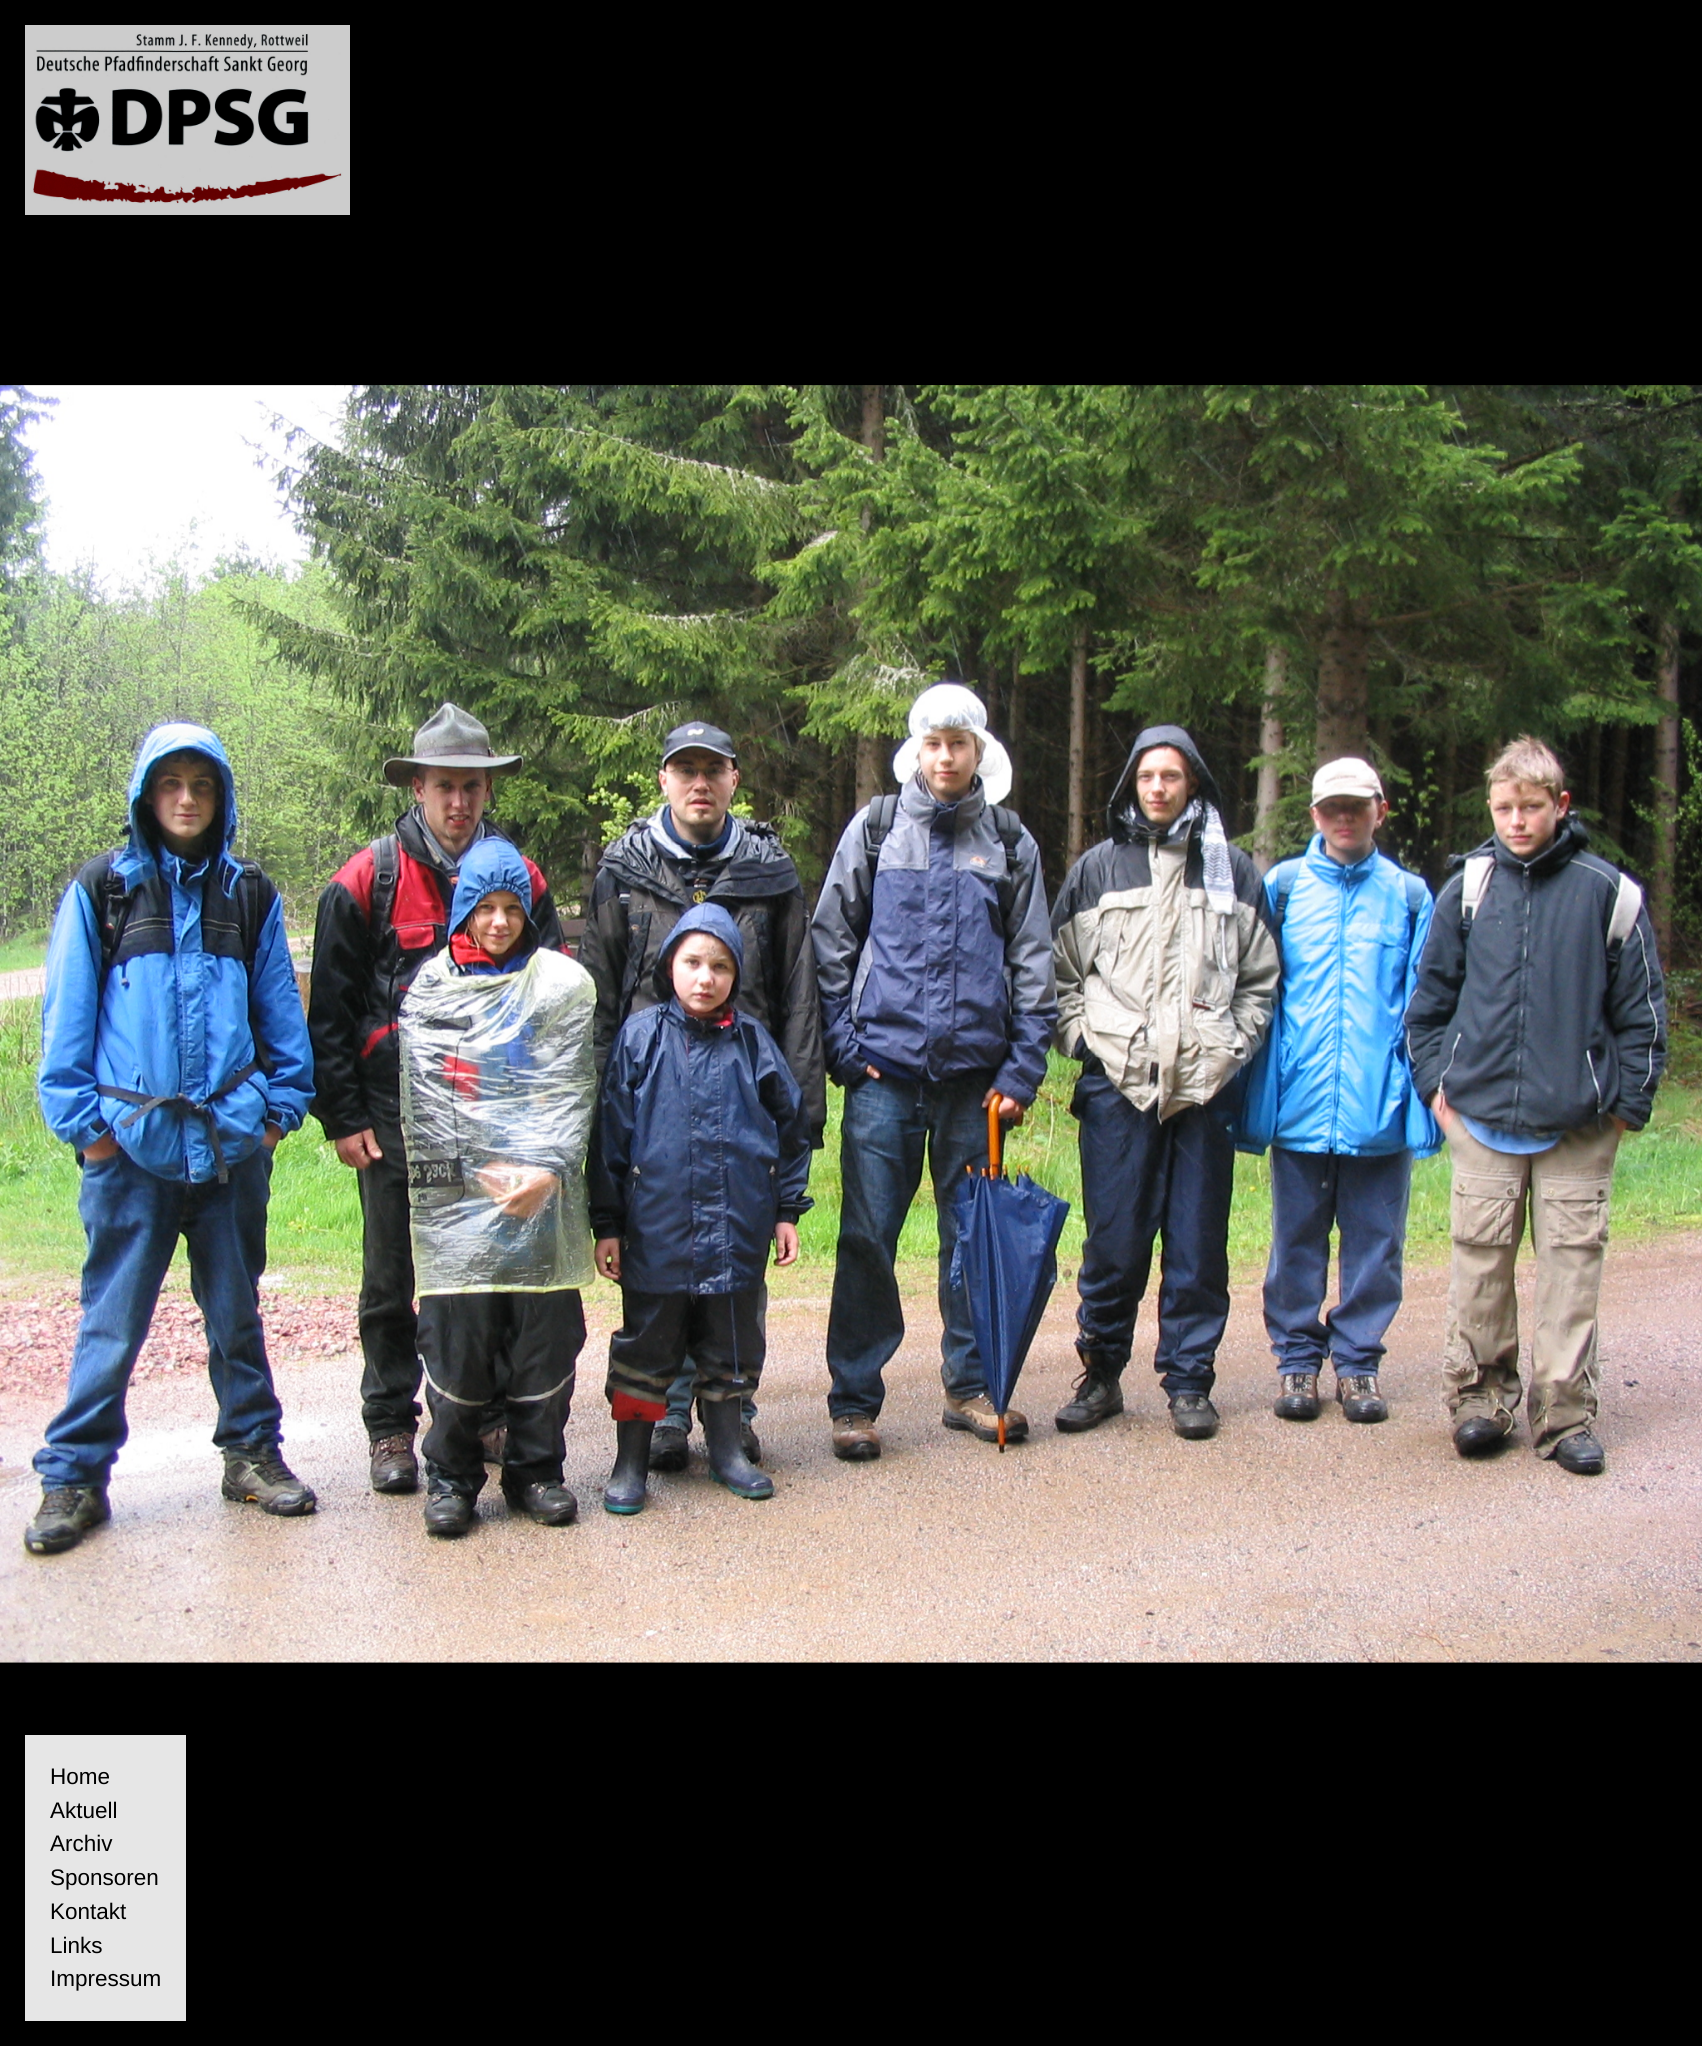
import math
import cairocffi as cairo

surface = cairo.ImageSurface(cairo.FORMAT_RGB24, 1702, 2046)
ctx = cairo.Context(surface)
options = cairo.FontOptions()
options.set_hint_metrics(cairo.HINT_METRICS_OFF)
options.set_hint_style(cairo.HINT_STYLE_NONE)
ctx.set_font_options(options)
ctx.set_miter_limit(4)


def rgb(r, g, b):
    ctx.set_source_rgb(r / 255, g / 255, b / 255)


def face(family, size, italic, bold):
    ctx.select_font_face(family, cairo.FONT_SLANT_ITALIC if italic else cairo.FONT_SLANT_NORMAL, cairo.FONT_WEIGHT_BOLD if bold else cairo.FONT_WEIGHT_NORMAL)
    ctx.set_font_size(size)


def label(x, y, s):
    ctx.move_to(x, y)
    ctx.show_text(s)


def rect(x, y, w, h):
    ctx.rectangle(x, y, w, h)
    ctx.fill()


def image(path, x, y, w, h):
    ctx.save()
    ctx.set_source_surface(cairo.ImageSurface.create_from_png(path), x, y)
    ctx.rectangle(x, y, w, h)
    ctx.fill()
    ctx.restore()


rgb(0, 0, 0)
ctx.paint()
image('image0.png', 25, 25, 325, 190)
image('image1.png', 0, 385, 1702, 1278)
rgb(230, 230, 230)
rect(25, 1735, 161, 286)
face('Liberation Sans', 22.5, 0, 0)
rgb(0, 0, 0)
label(50, 1784, 'Home')
label(50, 1818, 'Aktuell')
label(50, 1851, 'Archiv')
label(50, 1885, 'Sponsoren')
label(50, 1919, 'Kontakt')
label(50, 1953, 'Links')
label(50, 1986, 'Impressum')
surface.write_to_png('render.png')
